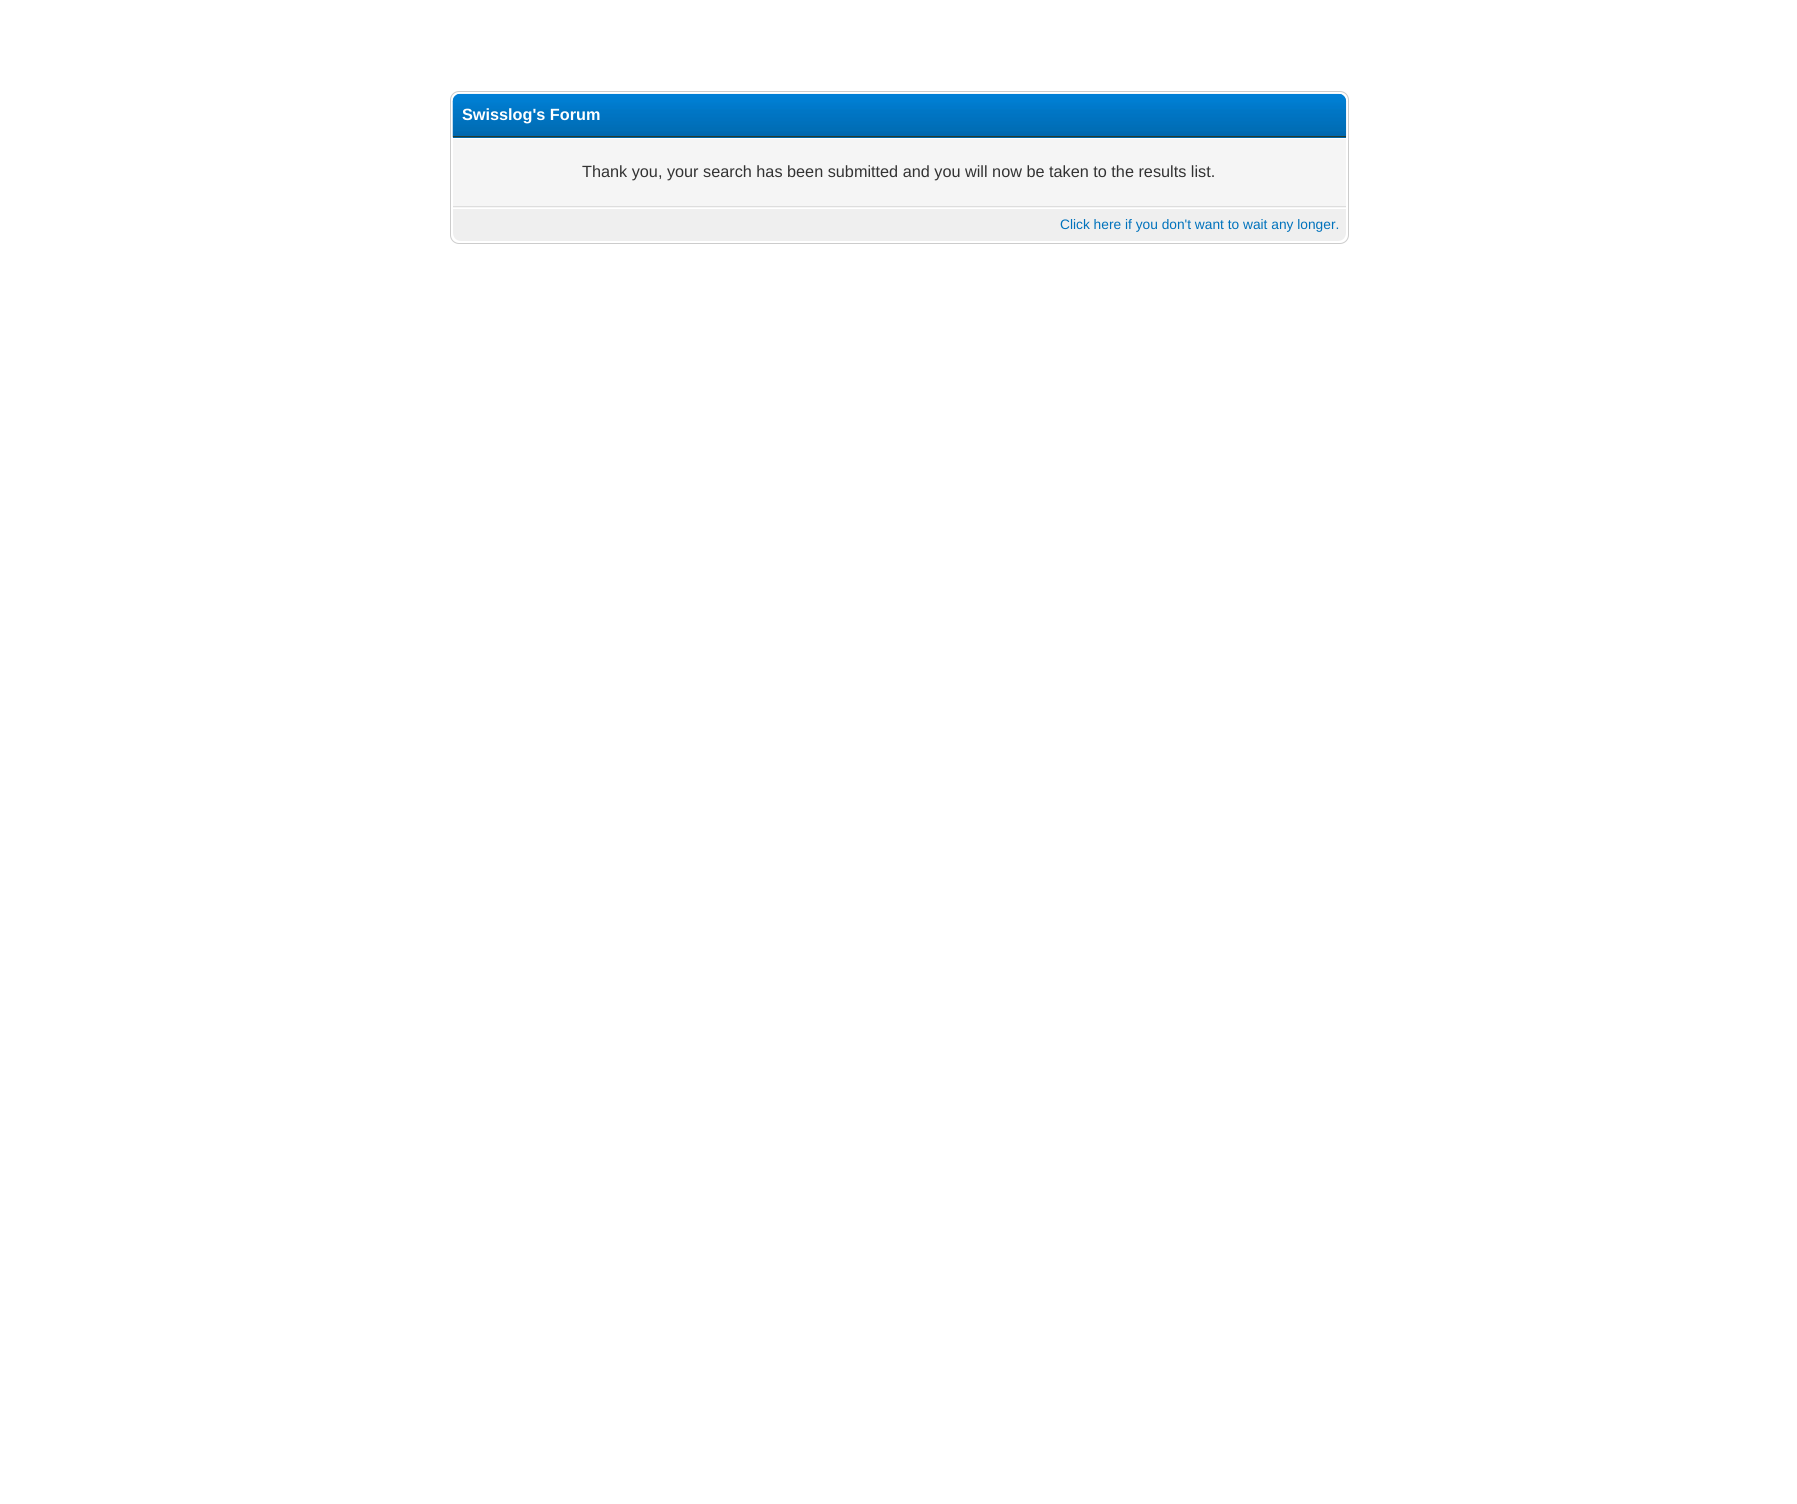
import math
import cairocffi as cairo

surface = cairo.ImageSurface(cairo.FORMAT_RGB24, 1797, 1504)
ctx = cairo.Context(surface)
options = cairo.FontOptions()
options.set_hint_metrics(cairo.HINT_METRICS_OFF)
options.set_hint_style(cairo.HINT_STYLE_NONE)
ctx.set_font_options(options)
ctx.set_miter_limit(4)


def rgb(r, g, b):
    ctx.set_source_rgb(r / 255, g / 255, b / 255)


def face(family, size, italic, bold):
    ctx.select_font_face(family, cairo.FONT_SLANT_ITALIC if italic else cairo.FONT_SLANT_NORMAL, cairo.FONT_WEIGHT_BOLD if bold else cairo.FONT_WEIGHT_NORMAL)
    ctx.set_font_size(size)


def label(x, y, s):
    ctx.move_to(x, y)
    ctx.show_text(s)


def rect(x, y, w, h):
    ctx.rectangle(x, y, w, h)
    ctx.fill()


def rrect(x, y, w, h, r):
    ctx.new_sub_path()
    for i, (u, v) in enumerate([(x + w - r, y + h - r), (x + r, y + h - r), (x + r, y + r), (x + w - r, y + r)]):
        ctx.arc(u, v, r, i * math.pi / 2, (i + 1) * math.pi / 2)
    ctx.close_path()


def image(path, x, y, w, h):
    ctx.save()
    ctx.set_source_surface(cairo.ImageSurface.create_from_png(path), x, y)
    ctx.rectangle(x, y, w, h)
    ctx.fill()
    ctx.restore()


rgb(255, 255, 255)
ctx.paint()
rrect(450.5, 91.5, 898, 152, 8.5)
rgb(204, 204, 204)
ctx.set_line_width(1)
ctx.stroke()
rgb(0, 102, 162)
ctx.new_path()
ctx.move_to(461, 94)
ctx.line_to(1338, 94)
ctx.curve_to(1342.5, 94, 1346, 97.5, 1346, 102)
ctx.line_to(1346, 138)
ctx.line_to(453, 138)
ctx.line_to(453, 102)
ctx.curve_to(453, 97.5, 456.5, 94, 461, 94)
ctx.close_path()
ctx.fill()
image('image0.png', 452, 93, 895, 45)
rgb(38, 60, 48)
rect(453, 136, 893, 1)
face('Liberation Sans', 16.25, 0, 1)
rgb(255, 255, 255)
label(462, 120, 'Swisslog\'s Forum')
rgb(245, 245, 245)
rect(453, 139, 893, 69)
rgb(221, 221, 221)
rect(453, 206, 893, 1)
face('Liberation Sans', 16.25, 0, 0)
rgb(51, 51, 51)
label(582, 177, 'Thank you, your search has been submitted and you will now be taken to the results list.')
rgb(239, 239, 239)
ctx.new_path()
ctx.move_to(453, 208)
ctx.line_to(1346, 208)
ctx.line_to(1346, 233)
ctx.curve_to(1346, 237.5, 1342.5, 241, 1338, 241)
ctx.line_to(461, 241)
ctx.curve_to(456.5, 241, 453, 237.5, 453, 233)
ctx.close_path()
ctx.fill()
rgb(255, 255, 255)
rect(453, 208, 893, 1)
face('Liberation Sans', 13.75, 0, 0)
rgb(0, 114, 188)
label(1060, 229, 'Click here if you don\'t want to wait any longer.')
surface.write_to_png('render.png')
